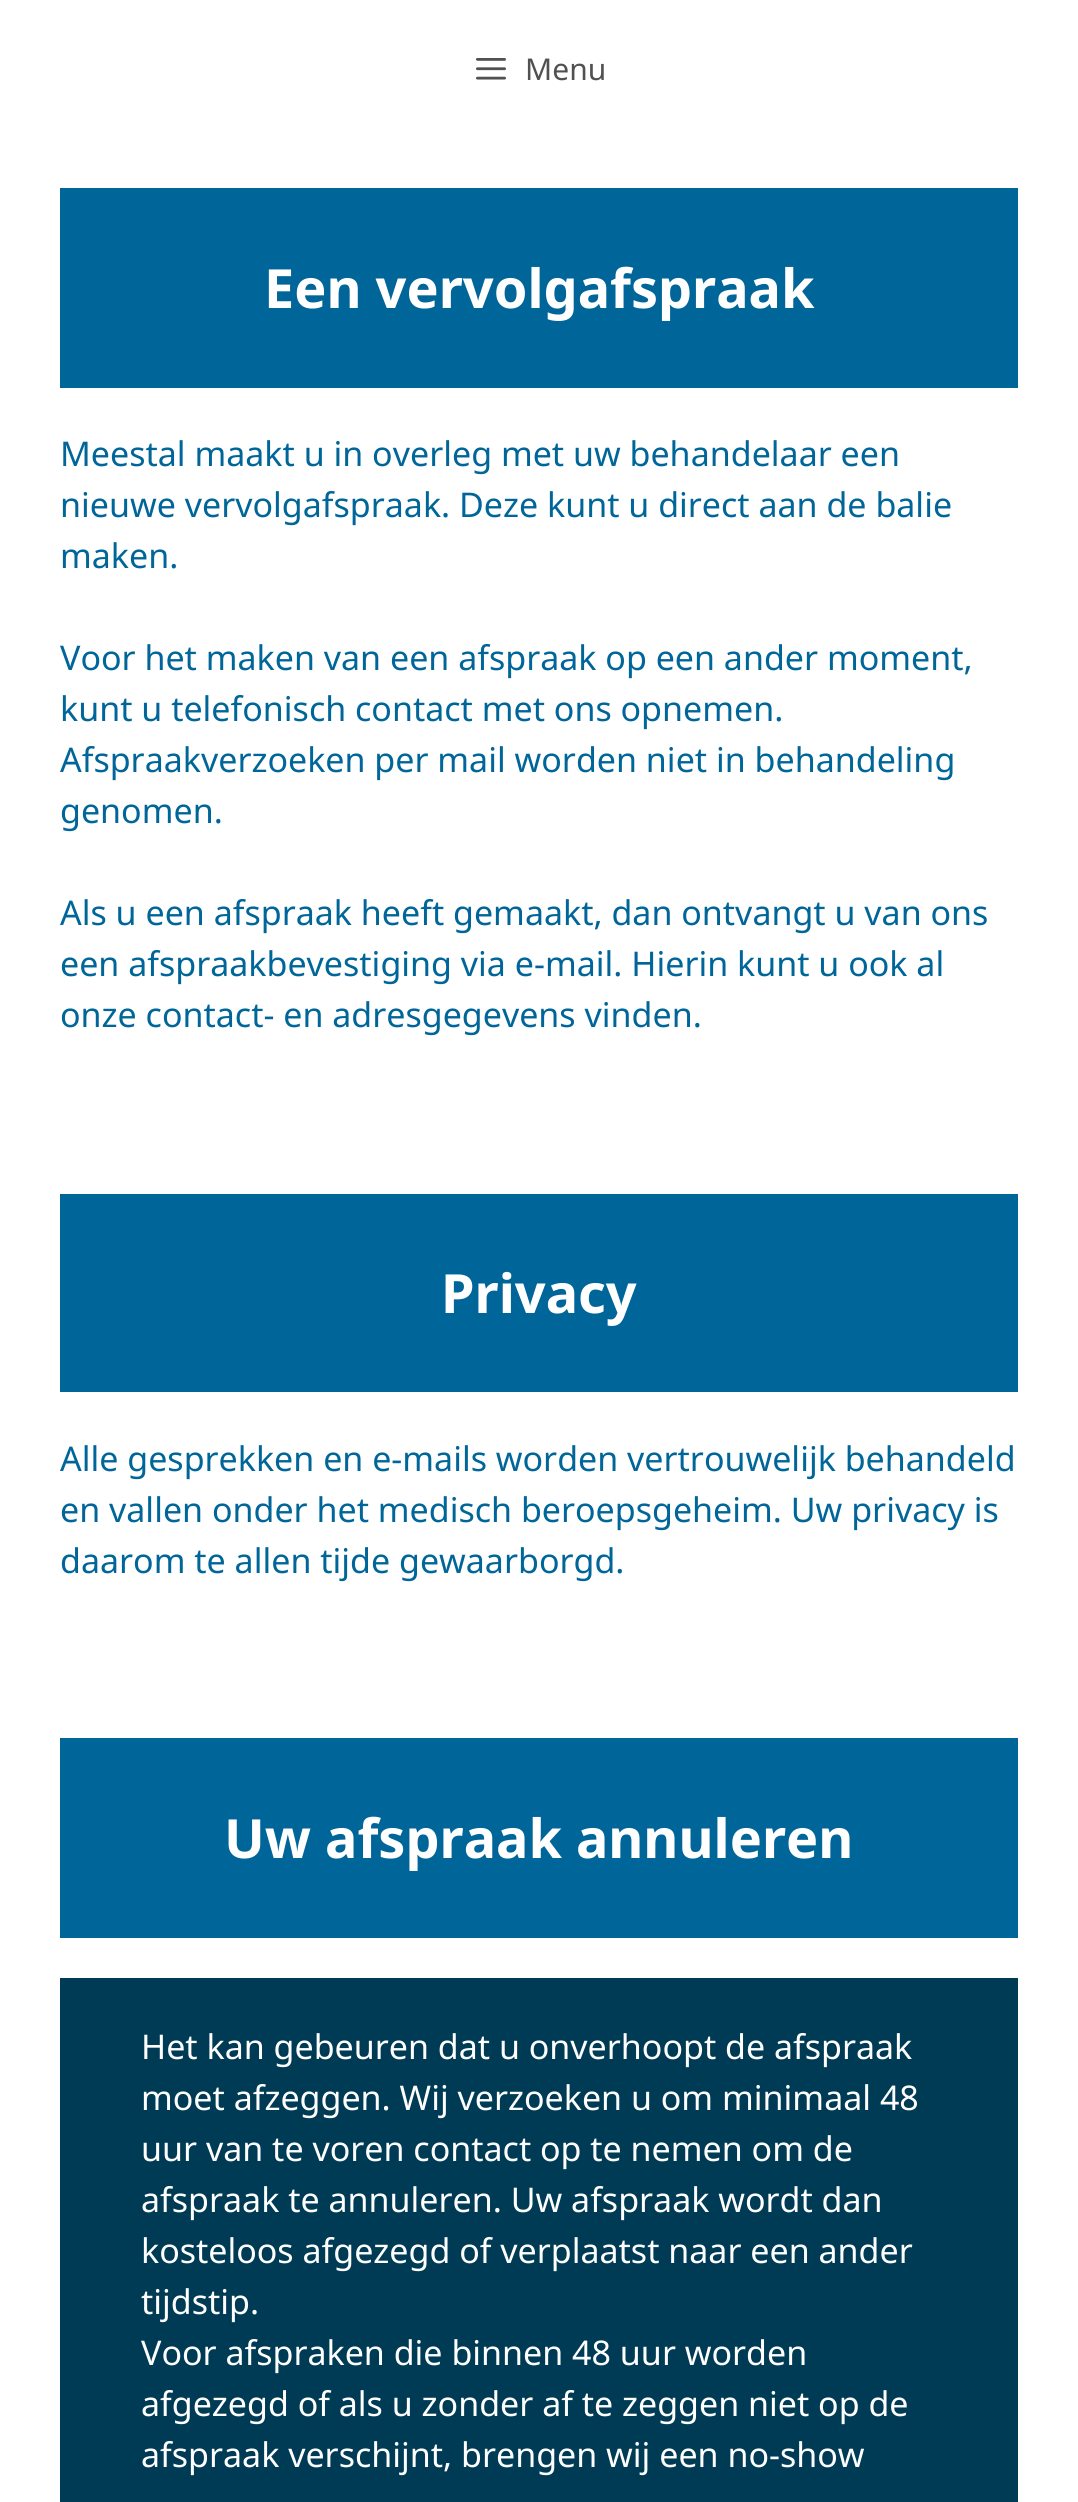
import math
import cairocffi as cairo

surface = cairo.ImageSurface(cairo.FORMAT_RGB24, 1078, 2502)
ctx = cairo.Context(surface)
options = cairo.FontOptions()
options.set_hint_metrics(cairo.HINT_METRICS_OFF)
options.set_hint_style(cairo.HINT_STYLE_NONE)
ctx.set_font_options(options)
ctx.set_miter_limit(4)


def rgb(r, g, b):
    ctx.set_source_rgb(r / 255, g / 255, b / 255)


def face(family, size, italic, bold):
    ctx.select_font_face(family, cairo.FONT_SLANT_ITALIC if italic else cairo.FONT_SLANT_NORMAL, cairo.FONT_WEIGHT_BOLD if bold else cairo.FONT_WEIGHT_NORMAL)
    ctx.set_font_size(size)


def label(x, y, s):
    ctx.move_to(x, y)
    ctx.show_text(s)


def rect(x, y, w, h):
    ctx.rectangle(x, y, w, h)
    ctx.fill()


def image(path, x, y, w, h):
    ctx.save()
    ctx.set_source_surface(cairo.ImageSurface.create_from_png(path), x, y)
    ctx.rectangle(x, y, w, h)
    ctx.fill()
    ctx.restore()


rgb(255, 255, 255)
ctx.paint()
image('image0.png', 476, 58, 30, 22)
face('Noto Sans', 30, 0, 0)
rgb(81, 81, 81)
label(525, 80, 'Menu')
rgb(0, 102, 153)
rect(60, 188, 958, 200)
face('Noto Sans', 54, 0, 1)
rgb(255, 255, 255)
label(264, 308, 'Een vervolgafspraak')
face('Noto Sans', 34, 0, 0)
rgb(0, 102, 153)
label(60, 466, 'Meestal maakt u in overleg met uw behandelaar een')
label(60, 517, 'nieuwe vervolgafspraak. Deze kunt u direct aan de balie')
label(60, 568, 'maken.')
label(60, 670, 'Voor het maken van een afspraak op een ander moment,')
label(60, 721, 'kunt u telefonisch contact met ons opnemen.')
label(60, 772, 'Afspraakverzoeken per mail worden niet in behandeling')
label(60, 823, 'genomen.')
label(60, 925, 'Als u een afspraak heeft gemaakt, dan ontvangt u van ons')
label(60, 976, 'een afspraakbevestiging via e-mail. Hierin kunt u ook al')
label(60, 1027, 'onze contact- en adresgegevens vinden.')
rect(60, 1194, 958, 198)
face('Noto Sans', 54, 0, 1)
rgb(255, 255, 255)
label(441, 1313, 'Privacy')
face('Noto Sans', 34, 0, 0)
rgb(0, 102, 153)
label(60, 1471, 'Alle gesprekken en e-mails worden vertrouwelijk behandeld')
label(60, 1522, 'en vallen onder het medisch beroepsgeheim. Uw privacy is')
label(60, 1573, 'daarom te allen tijde gewaarborgd.')
rect(60, 1738, 958, 200)
face('Noto Sans', 54, 0, 1)
rgb(255, 255, 255)
label(224, 1858, 'Uw afspraak annuleren')
rgb(0, 59, 85)
rect(60, 1978, 958, 524)
face('Noto Sans', 34, 0, 0)
rgb(255, 255, 255)
label(141, 2059, 'Het kan gebeuren dat u onverhoopt de afspraak')
label(141, 2110, 'moet afzeggen. Wij verzoeken u om minimaal 48')
label(141, 2161, 'uur van te voren contact op te nemen om de')
label(141, 2212, 'afspraak te annuleren. Uw afspraak wordt dan')
label(141, 2263, 'kosteloos afgezegd of verplaatst naar een ander')
label(141, 2314, 'tijdstip.')
label(141, 2365, 'Voor afspraken die binnen 48 uur worden')
label(141, 2416, 'afgezegd of als u zonder af te zeggen niet op de')
label(141, 2467, 'afspraak verschijnt, brengen wij een no-show')
surface.write_to_png('render.png')
